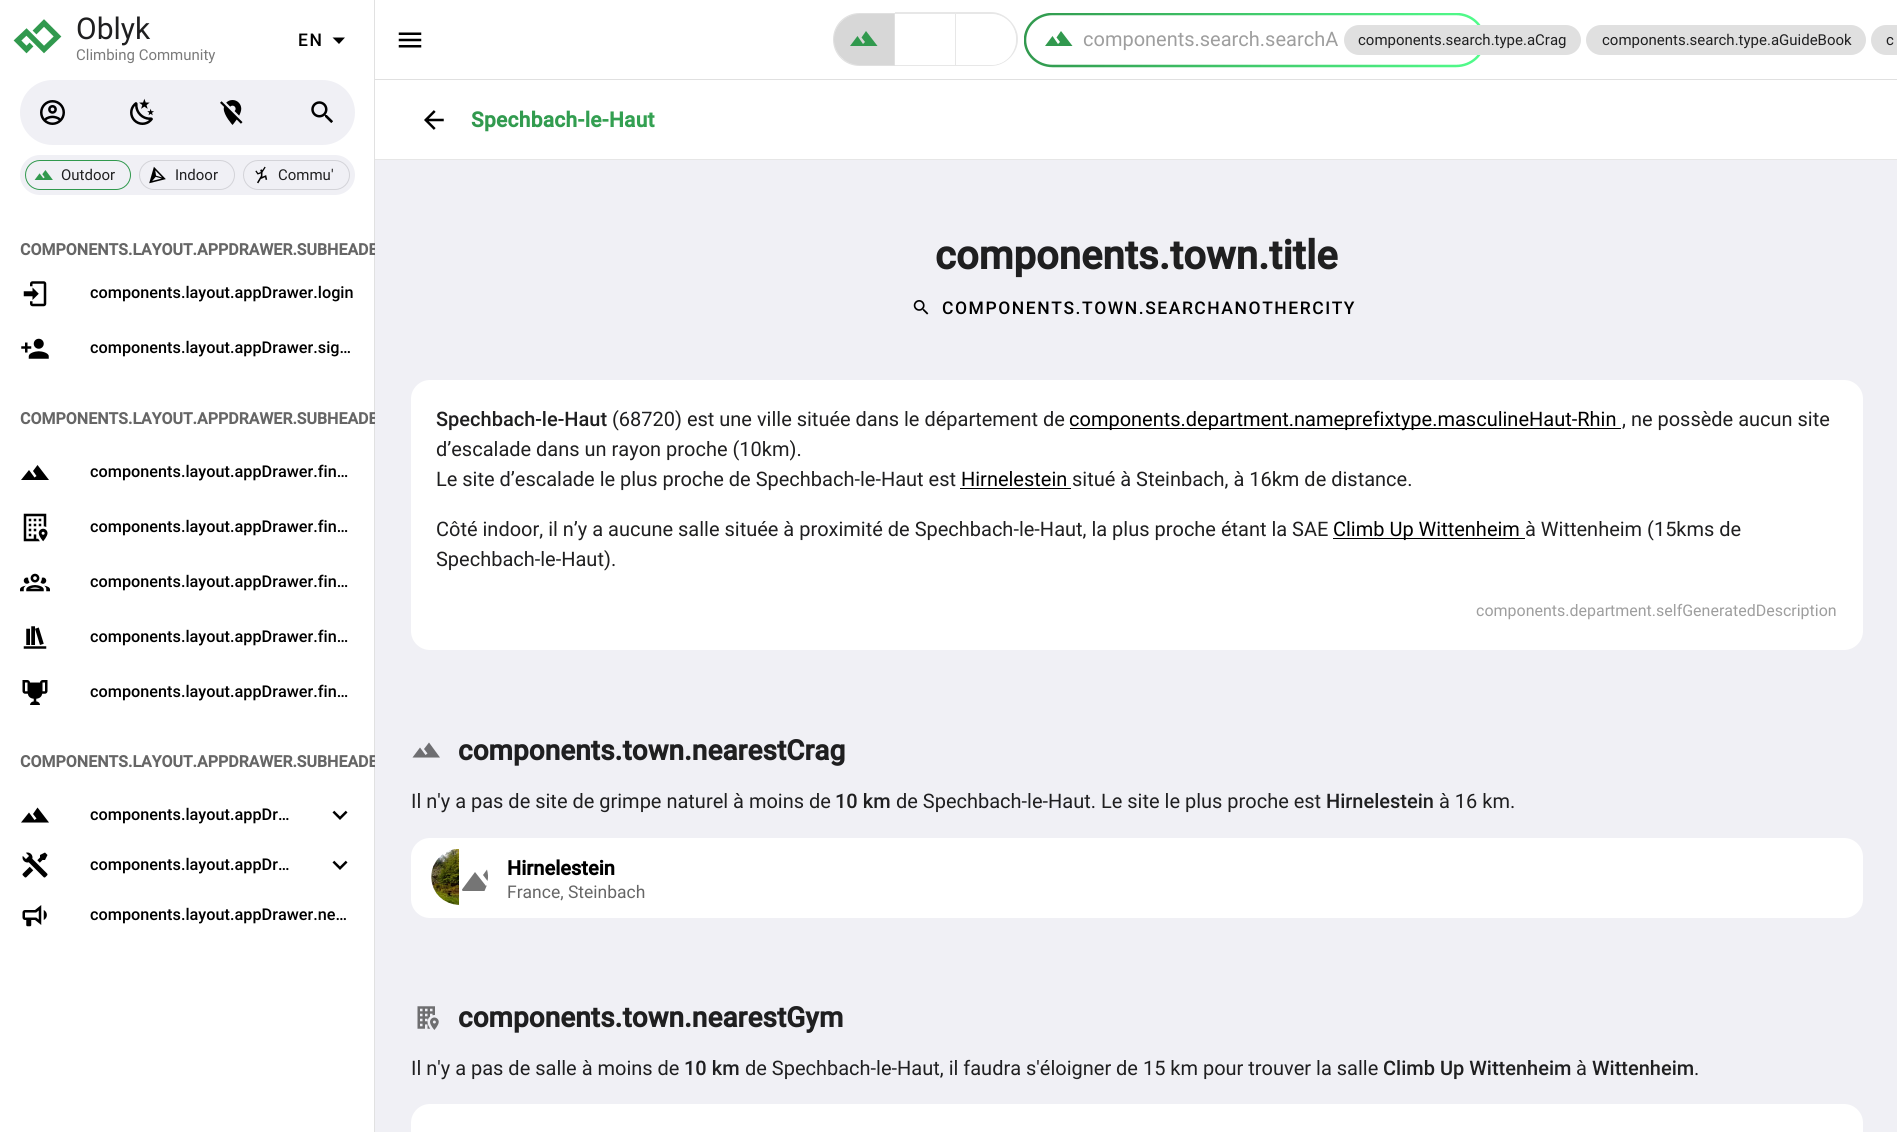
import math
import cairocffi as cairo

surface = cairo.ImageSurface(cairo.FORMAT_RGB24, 1897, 1132)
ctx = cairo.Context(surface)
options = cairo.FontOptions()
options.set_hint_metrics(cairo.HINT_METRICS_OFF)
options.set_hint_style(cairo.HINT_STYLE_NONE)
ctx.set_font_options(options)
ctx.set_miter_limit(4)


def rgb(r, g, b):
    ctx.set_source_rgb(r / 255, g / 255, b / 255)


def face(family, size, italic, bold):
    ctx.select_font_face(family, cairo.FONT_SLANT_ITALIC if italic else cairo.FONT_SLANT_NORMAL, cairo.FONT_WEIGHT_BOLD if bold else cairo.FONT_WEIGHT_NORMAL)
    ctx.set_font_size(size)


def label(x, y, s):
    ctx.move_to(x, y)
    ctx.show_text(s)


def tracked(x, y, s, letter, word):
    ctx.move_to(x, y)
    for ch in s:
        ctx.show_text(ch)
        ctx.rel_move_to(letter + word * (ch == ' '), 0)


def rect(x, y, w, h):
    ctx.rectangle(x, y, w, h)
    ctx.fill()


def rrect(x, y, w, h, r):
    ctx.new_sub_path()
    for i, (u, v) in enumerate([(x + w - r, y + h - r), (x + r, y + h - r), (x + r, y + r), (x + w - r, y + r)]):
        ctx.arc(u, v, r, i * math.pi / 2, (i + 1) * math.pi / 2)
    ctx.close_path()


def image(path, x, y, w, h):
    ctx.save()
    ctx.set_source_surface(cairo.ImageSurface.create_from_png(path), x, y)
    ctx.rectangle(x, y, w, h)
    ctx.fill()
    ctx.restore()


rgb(255, 255, 255)
ctx.paint()
ctx.set_source_rgba(0, 0, 0, 0.12)
rect(374, 0, 1, 1132)
ctx.new_path()
ctx.move_to(34.5, 32.5)
ctx.line_to(44, 23)
ctx.line_to(57.5, 36.5)
ctx.line_to(44, 49.5)
ctx.line_to(26.5, 32)
ctx.line_to(17.5, 40.5)
ctx.line_to(26.5, 49.5)
ctx.line_to(31.5, 44.5)
rgb(49, 153, 78)
ctx.set_line_width(5.4)
ctx.stroke()
face('Roboto', 30, 0, 0)
rgb(31, 31, 32)
label(76, 39, 'Oblyk')
face('Roboto', 15, 0, 0)
rgb(122, 122, 122)
label(76, 60, 'Climbing Community')
face('Roboto Medium', 17.5, 0, 0)
rgb(0, 0, 0)
tracked(298, 46, 'EN', 1.55, 0)
ctx.new_path()
ctx.move_to(332.5, 37.5)
ctx.line_to(339, 44)
ctx.line_to(345, 37.5)
ctx.close_path()
ctx.fill()
rgb(240, 240, 245)
rrect(20, 80, 335, 65, 32.5)
ctx.fill()
image('image0.png', 40, 100, 25, 25)
image('image1.png', 130, 98, 24, 27)
image('image2.png', 220, 100, 23, 25)
image('image3.png', 311, 101, 22, 22)
rrect(20, 155, 335, 40, 20)
ctx.fill()
rrect(25.5, 160.5, 105, 29, 14.5)
rgb(49, 153, 78)
ctx.set_line_width(1)
ctx.stroke()
image('image4.png', 34, 170, 19, 10)
face('Roboto', 15, 0, 0)
rgb(31, 31, 32)
label(61, 180, 'Outdoor')
rrect(139.5, 160.5, 95, 29, 14.5)
rgb(211, 211, 216)
ctx.stroke()
image('image5.png', 149, 166, 17, 18)
rgb(31, 31, 32)
label(175, 180, 'Indoor')
rrect(243.5, 160.5, 106, 29, 14.5)
rgb(211, 211, 216)
ctx.stroke()
image('image6.png', 255, 166, 13, 18)
rgb(31, 31, 32)
label(278, 180, 'Commu\'')
ctx.save()
ctx.rectangle(0, 0, 375, 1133)
ctx.clip()
face('Roboto', 16, 0, 1)
rgb(102, 102, 102)
label(20, 255, 'COMPONENTS.LAYOUT.APPDRAWER.SUBHEADE')
ctx.restore()
image('image7.png', 23, 281, 24, 26)
face('Roboto Medium', 16.25, 0, 0)
rgb(0, 0, 0)
label(90, 298, 'components.layout.appDrawer.login')
image('image8.png', 21, 338, 28, 21)
label(90, 353, 'components.layout.appDrawer.sig…')
ctx.save()
ctx.rectangle(0, 0, 375, 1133)
ctx.clip()
face('Roboto', 16, 0, 1)
rgb(102, 102, 102)
label(20, 424, 'COMPONENTS.LAYOUT.APPDRAWER.SUBHEADE')
ctx.restore()
ctx.new_path()
ctx.move_to(37.5, 465)
ctx.line_to(33, 471)
ctx.line_to(36.5, 476)
ctx.line_to(34.5, 477.5)
ctx.line_to(29, 470)
ctx.line_to(21, 480)
ctx.line_to(49, 480)
ctx.close_path()
ctx.fill()
label(90, 477, 'components.layout.appDrawer.fin…')
image('image9.png', 23, 513, 25, 29)
label(90, 532, 'components.layout.appDrawer.fin…')
image('image10.png', 20, 573, 30, 19)
label(90, 587, 'components.layout.appDrawer.fin…')
image('image11.png', 23, 626, 24, 23)
label(90, 642, 'components.layout.appDrawer.fin…')
image('image12.png', 22, 680, 26, 25)
label(90, 697, 'components.layout.appDrawer.fin…')
ctx.save()
ctx.rectangle(0, 0, 375, 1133)
ctx.clip()
face('Roboto', 16, 0, 1)
rgb(102, 102, 102)
label(20, 767, 'COMPONENTS.LAYOUT.APPDRAWER.SUBHEADE')
ctx.restore()
ctx.new_path()
ctx.move_to(37.5, 807.5)
ctx.line_to(33, 814)
ctx.line_to(36.5, 818.5)
ctx.line_to(34.5, 820)
ctx.line_to(29, 812.5)
ctx.line_to(21, 822.5)
ctx.line_to(49, 822.5)
ctx.close_path()
ctx.fill()
label(90, 820, 'components.layout.appDr…')
image('image13.png', 332, 810, 16, 10)
image('image14.png', 22, 852, 26, 26)
label(90, 870, 'components.layout.appDr…')
image('image13.png', 332, 860, 16, 10)
image('image15.png', 22, 905, 25, 22)
label(90, 920, 'components.layout.appDrawer.ne…')
rgb(224, 224, 224)
rect(375, 79, 1522, 1)
image('image16.png', 398, 32, 24, 16)
ctx.new_path()
ctx.move_to(859.5, 13.5)
ctx.line_to(894.5, 13.5)
ctx.line_to(894.5, 65.5)
ctx.line_to(859.5, 65.5)
ctx.curve_to(845, 65.5, 833.5, 54, 833.5, 39.5)
ctx.curve_to(833.5, 25, 845, 13.5, 859.5, 13.5)
ctx.close_path()
ctx.stroke()
ctx.set_source_rgba(0, 0, 0, 0.16)
ctx.new_path()
ctx.move_to(859.5, 14)
ctx.line_to(894, 14)
ctx.line_to(894, 65)
ctx.line_to(859.5, 65)
ctx.curve_to(845.5, 65, 834, 53.5, 834, 39.5)
ctx.curve_to(834, 25.5, 845.5, 14, 859.5, 14)
ctx.close_path()
ctx.fill()
rgb(49, 153, 78)
ctx.new_path()
ctx.move_to(866, 31)
ctx.line_to(861.5, 37.5)
ctx.line_to(865, 42)
ctx.line_to(863, 44)
ctx.line_to(857.5, 36)
ctx.line_to(850, 46)
ctx.line_to(877.5, 46)
ctx.close_path()
ctx.fill()
rgb(231, 231, 231)
ctx.new_path()
ctx.move_to(895, 12)
ctx.line_to(956, 12)
ctx.line_to(955, 14)
ctx.line_to(895, 14)
ctx.close_path()
ctx.fill()
ctx.set_source_rgba(0.2, 0.2, 0.2, 0.12)
ctx.new_path()
ctx.move_to(956, 12)
ctx.line_to(956, 66)
ctx.line_to(955, 65)
ctx.line_to(955, 14)
ctx.close_path()
ctx.fill()
ctx.new_path()
ctx.move_to(956, 66)
ctx.line_to(895, 66)
ctx.line_to(895, 65)
ctx.line_to(955, 65)
ctx.close_path()
ctx.fill()
rgb(231, 231, 231)
ctx.set_fill_rule(cairo.FILL_RULE_EVEN_ODD)
ctx.new_path()
ctx.move_to(956, 12)
ctx.line_to(991, 12)
ctx.curve_to(1005, 12, 1018, 25, 1018, 39)
ctx.curve_to(1018, 54, 1005, 66, 991, 66)
ctx.line_to(956, 66)
ctx.close_path()
ctx.move_to(956, 14)
ctx.line_to(991, 14)
ctx.curve_to(1005, 14, 1016, 25, 1016, 39)
ctx.curve_to(1016, 54, 1005, 65, 991, 65)
ctx.line_to(956, 65)
ctx.close_path()
ctx.fill()
ctx.set_source_rgba(1, 1, 1, 0.87)
ctx.new_path()
ctx.move_to(956, 14)
ctx.line_to(990.5, 14)
ctx.curve_to(1004.5, 14, 1016, 25.5, 1016, 39.5)
ctx.curve_to(1016, 53.5, 1004.5, 65, 990.5, 65)
ctx.line_to(956, 65)
ctx.close_path()
ctx.fill()
face('Roboto', 20, 0, 0)
rgb(158, 158, 158)
label(1083, 46, 'components.search.searchA')
ctx.save()
ctx.set_fill_rule(cairo.FILL_RULE_WINDING)
ctx.rectangle(1024, 13, 462, 56)
ctx.clip()
ctx.new_path()
ctx.move_to(1052.5, 14)
ctx.line_to(1456, 14)
ctx.curve_to(1471.5, 14, 1484, 25.5, 1484, 40)
ctx.curve_to(1484, 54.5, 1471.5, 66, 1456, 66)
ctx.line_to(1052.5, 66)
ctx.curve_to(1037.5, 66, 1025, 54.5, 1025, 40)
ctx.curve_to(1025, 25.5, 1037.5, 14, 1052.5, 14)
ctx.close_path()
gradient = cairo.LinearGradient(1025, 14, 1484, 14)
gradient.add_color_stop_rgba(0, 0.192, 0.6, 0.306, 1)
gradient.add_color_stop_rgba(1, 0.318, 0.992, 0.545, 1)
ctx.set_source(gradient)
ctx.set_line_width(2.5)
ctx.stroke()
ctx.restore()
rgb(49, 153, 78)
ctx.set_fill_rule(cairo.FILL_RULE_WINDING)
ctx.new_path()
ctx.move_to(1061, 31)
ctx.line_to(1056.5, 37.5)
ctx.line_to(1060, 42)
ctx.line_to(1058, 44)
ctx.line_to(1052.5, 36)
ctx.line_to(1045, 46)
ctx.line_to(1072.5, 46)
ctx.close_path()
ctx.fill()
rgb(224, 224, 224)
rrect(1344, 25, 237, 30, 15)
ctx.fill()
face('Roboto', 15, 0, 0)
rgb(31, 31, 32)
label(1358, 45, 'components.search.type.aCrag')
rgb(224, 224, 224)
rrect(1586, 25, 280, 30, 15)
ctx.fill()
rgb(31, 31, 32)
label(1602, 45, 'components.search.type.aGuideBook')
rgb(224, 224, 224)
rrect(1871, 25, 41, 30, 15)
ctx.fill()
rgb(31, 31, 32)
label(1886, 45, 'c')
rgb(240, 240, 245)
rect(375, 160, 1522, 972)
rgb(230, 230, 230)
rect(375, 159, 1522, 1)
image('image17.png', 424, 110, 20, 20)
face('Roboto', 21, 0, 1)
gradient = cairo.LinearGradient(471, 119, 1877, 119)
gradient.add_color_stop_rgba(0, 0.192, 0.6, 0.306, 1)
gradient.add_color_stop_rgba(1, 0.275, 0.851, 0.431, 1)
ctx.set_source(gradient)
tracked(471, 127, 'Spechbach-le-Haut', 0.25, 0)
face('Roboto', 40, 0, 1)
rgb(31, 31, 32)
label(935, 269, 'components.town.title')
image('image18.png', 913, 300, 16, 15)
face('Roboto Medium', 17.5, 0, 0)
rgb(0, 0, 0)
tracked(942, 314, 'COMPONENTS.TOWN.SEARCHANOTHERCITY', 1.55, 0)
rgb(255, 255, 255)
rrect(411, 380, 1452, 270, 19)
ctx.fill()
face('Roboto Medium', 20, 0, 0)
rgb(31, 31, 32)
label(436, 426, 'Spechbach-le-Haut')
face('Roboto', 20, 0, 0)
label(612, 426, '(68720) est une ville située dans le département de')
rgb(0, 0, 0)
rect(1070, 428, 551, 1)
label(1069, 426, 'components.department.nameprefixtype.masculineHaut-Rhin')
rgb(31, 31, 32)
label(1622, 426, ', ne possède aucun site')
label(436, 456, 'd’escalade dans un rayon proche (10km).')
label(436, 486, 'Le site d’escalade le plus proche de Spechbach-le-Haut est')
rgb(0, 0, 0)
label(961, 486, 'Hirnelestein')
rect(960, 488, 111, 1)
rgb(31, 31, 32)
label(1072, 486, 'situé à Steinbach, à 16km de distance.')
label(436, 536, 'Côté indoor, il n’y a aucune salle située à proximité de Spechbach-le-Haut, la plus proche étant la SAE')
rgb(0, 0, 0)
rect(1333, 538, 192, 1)
label(1333, 536, 'Climb Up Wittenheim')
rgb(31, 31, 32)
label(1525, 536, 'à Wittenheim (15kms de')
label(436, 566, 'Spechbach-le-Haut).')
face('Roboto', 16, 0, 0)
rgb(158, 158, 158)
label(1476, 616, 'components.department.selfGeneratedDescription')
rgb(110, 110, 113)
ctx.new_path()
ctx.move_to(429, 742.5)
ctx.line_to(424, 749)
ctx.line_to(427.5, 753.5)
ctx.line_to(425.5, 755)
ctx.line_to(420, 747.5)
ctx.line_to(412.5, 757.5)
ctx.line_to(440, 757.5)
ctx.close_path()
ctx.fill()
face('Roboto', 28, 0, 1)
rgb(31, 31, 32)
label(458, 760, 'components.town.nearestCrag')
face('Roboto', 20, 0, 0)
label(411, 808, 'Il n\'y a pas de site de grimpe naturel à moins de')
face('Roboto Medium', 20, 0, 0)
label(835, 808, '10 km')
face('Roboto', 20, 0, 0)
label(896, 808, 'de Spechbach-le-Haut. Le site le plus proche est')
face('Roboto Medium', 20, 0, 0)
label(1326, 808, 'Hirnelestein')
face('Roboto', 20, 0, 0)
label(1439, 808, 'à 16 km.')
rgb(255, 255, 255)
rrect(411, 838, 1452, 80, 19)
ctx.fill()
image('image19.png', 431, 849, 28, 56)
rgb(117, 117, 117)
ctx.set_fill_rule(cairo.FILL_RULE_EVEN_ODD)
ctx.new_path()
ctx.move_to(487, 885)
ctx.line_to(484.5, 891)
ctx.line_to(462.5, 891)
ctx.line_to(462, 889.5)
ctx.line_to(475, 872)
ctx.line_to(486, 886)
ctx.close_path()
ctx.move_to(487, 869.5)
ctx.curve_to(488, 873.5, 488.5, 877.5, 487.5, 881)
ctx.line_to(483, 875)
ctx.close_path()
ctx.fill()
face('Roboto', 20, 0, 1)
rgb(0, 0, 0)
label(507, 875, 'Hirnelestein')
face('Roboto', 17.5, 0, 0)
rgb(102, 102, 102)
label(507, 898, 'France, Steinbach')
image('image20.png', 417, 1006, 22, 24)
face('Roboto', 28, 0, 1)
rgb(31, 31, 32)
label(458, 1027, 'components.town.nearestGym')
face('Roboto', 20, 0, 0)
label(411, 1075, 'Il n\'y a pas de salle à moins de')
face('Roboto Medium', 20, 0, 0)
label(684, 1075, '10 km')
face('Roboto', 20, 0, 0)
label(745, 1075, 'de Spechbach-le-Haut, il faudra s\'éloigner de 15 km pour trouver la salle')
face('Roboto Medium', 20, 0, 0)
label(1383, 1075, 'Climb Up Wittenheim')
face('Roboto', 20, 0, 0)
label(1576, 1075, 'à')
face('Roboto Medium', 20, 0, 0)
label(1592, 1075, 'Wittenheim')
face('Roboto', 20, 0, 0)
label(1694, 1075, '.')
rgb(255, 255, 255)
rrect(411, 1104, 1452, 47, 19)
ctx.fill()
surface.write_to_png('render.png')
